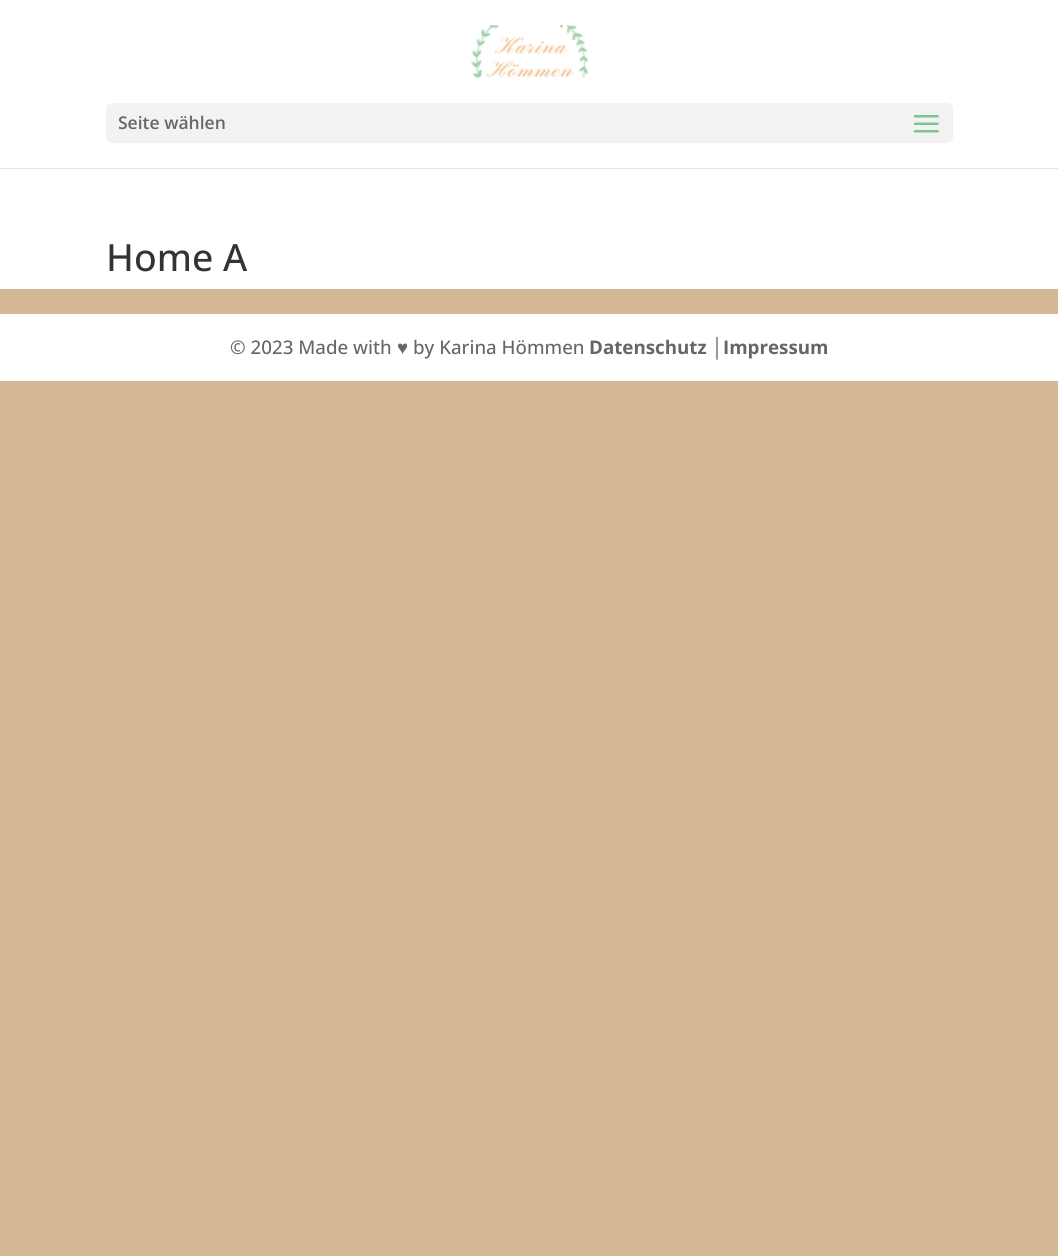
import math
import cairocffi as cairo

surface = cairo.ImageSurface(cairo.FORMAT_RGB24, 1058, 1256)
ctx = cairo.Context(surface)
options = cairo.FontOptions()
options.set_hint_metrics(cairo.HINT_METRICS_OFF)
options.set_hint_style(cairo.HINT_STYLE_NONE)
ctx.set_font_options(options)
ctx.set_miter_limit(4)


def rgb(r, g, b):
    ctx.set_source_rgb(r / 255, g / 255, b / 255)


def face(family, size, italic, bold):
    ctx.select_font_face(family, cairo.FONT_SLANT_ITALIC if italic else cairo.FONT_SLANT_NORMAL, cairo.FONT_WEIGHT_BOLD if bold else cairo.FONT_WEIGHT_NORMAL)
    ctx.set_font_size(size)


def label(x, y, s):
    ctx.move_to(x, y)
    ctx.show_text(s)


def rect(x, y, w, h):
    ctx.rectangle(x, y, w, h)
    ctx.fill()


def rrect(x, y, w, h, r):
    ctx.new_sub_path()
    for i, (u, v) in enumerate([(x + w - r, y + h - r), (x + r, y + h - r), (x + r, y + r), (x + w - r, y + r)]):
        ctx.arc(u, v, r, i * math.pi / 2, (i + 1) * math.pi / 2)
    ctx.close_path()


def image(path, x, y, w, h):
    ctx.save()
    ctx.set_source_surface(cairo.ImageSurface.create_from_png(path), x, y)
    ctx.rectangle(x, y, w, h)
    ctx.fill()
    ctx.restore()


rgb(212, 184, 149)
ctx.paint()
rgb(230, 230, 230)
ctx.new_path()
ctx.move_to(0, 168)
ctx.line_to(0, 169)
ctx.line_to(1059, 169)
ctx.line_to(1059, 1)
ctx.line_to(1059, 168)
ctx.close_path()
ctx.fill()
rgb(255, 255, 255)
rect(0, 0, 1058, 168)
image('image0.png', 471, 25, 118, 53)
rgb(242, 242, 242)
rrect(106, 103, 847, 40, 6)
ctx.fill()
face('Open Sans SemiBold', 17.5, 0, 0)
rgb(102, 102, 102)
label(118, 129, 'Seite wählen')
image('image1.png', 913, 115, 26, 18)
rgb(255, 255, 255)
rect(0, 169, 1058, 120)
face('Open Sans Medium', 37.5, 0, 0)
rgb(51, 51, 51)
label(106, 271, 'Home A')
rgb(255, 255, 255)
rect(0, 314, 1058, 67)
face('Open Sans Medium', 18.75, 0, 0)
rgb(102, 102, 102)
label(230, 354, '© 2023 Made with')
face('Liberation Sans', 18.75, 0, 0)
label(397, 354, '♥')
face('Open Sans Medium', 18.75, 0, 0)
label(413, 354, 'by Karina Hömmen')
face('Open Sans', 18.75, 0, 1)
label(589, 354, 'Datenschutz')
face('Liberation Sans', 18.75, 0, 1)
label(712, 354, '│')
face('Open Sans', 18.75, 0, 1)
label(723, 354, 'Impressum')
surface.write_to_png('render.png')
